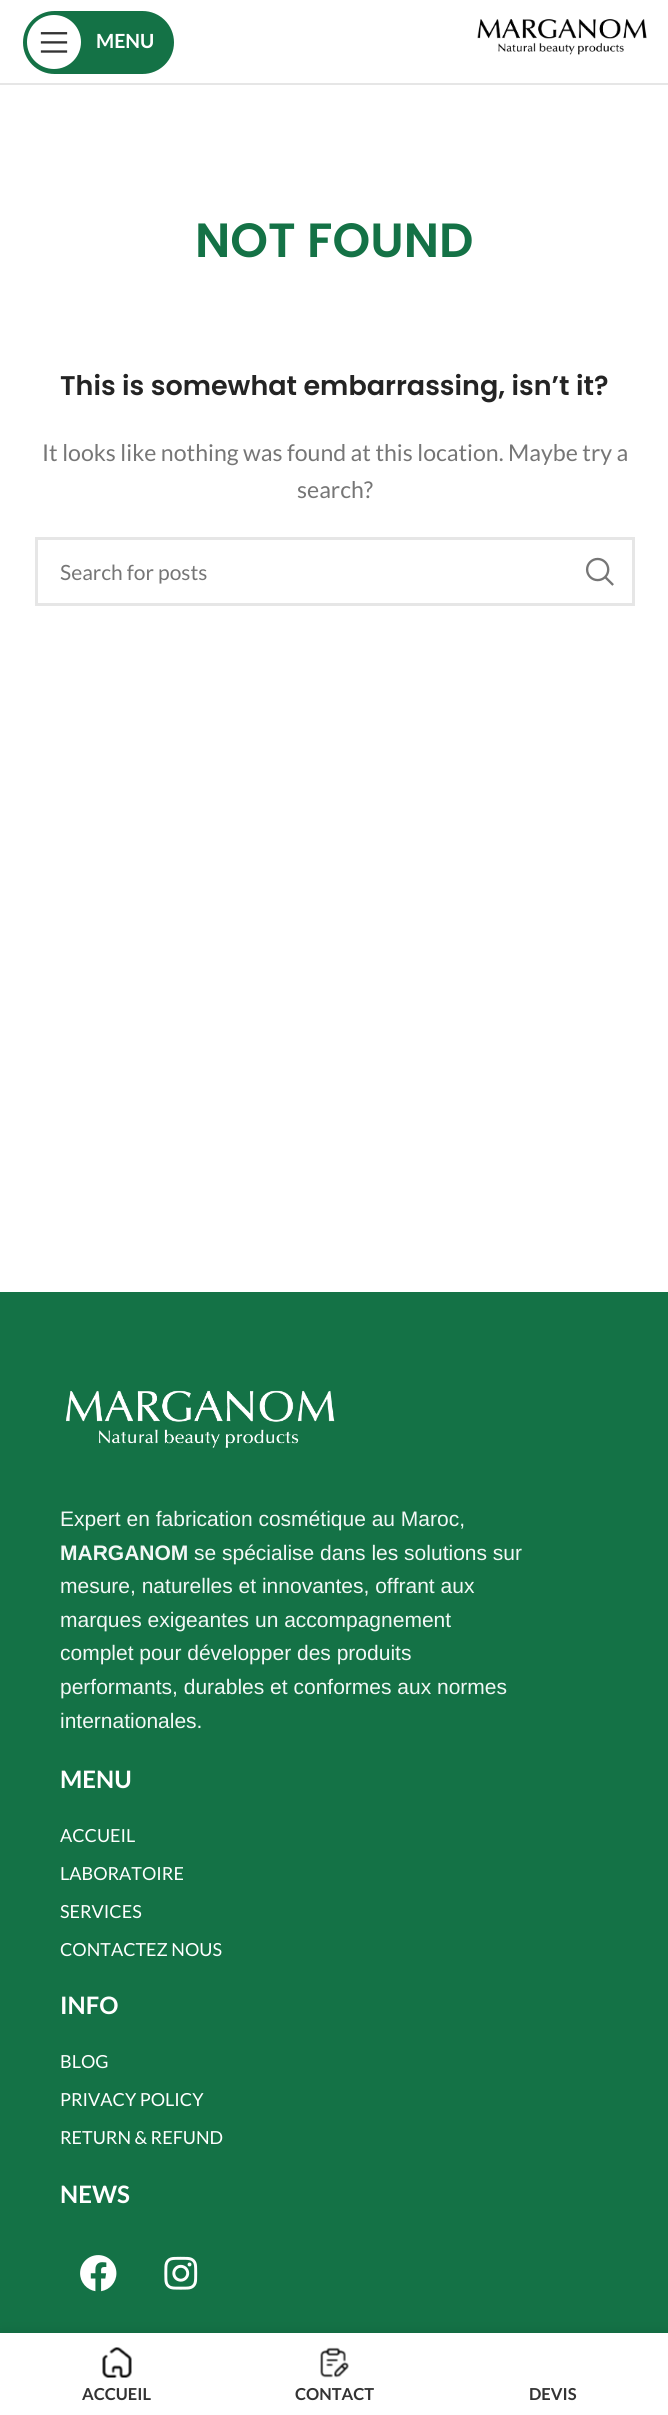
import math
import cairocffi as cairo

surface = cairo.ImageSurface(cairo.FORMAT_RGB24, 668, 2415)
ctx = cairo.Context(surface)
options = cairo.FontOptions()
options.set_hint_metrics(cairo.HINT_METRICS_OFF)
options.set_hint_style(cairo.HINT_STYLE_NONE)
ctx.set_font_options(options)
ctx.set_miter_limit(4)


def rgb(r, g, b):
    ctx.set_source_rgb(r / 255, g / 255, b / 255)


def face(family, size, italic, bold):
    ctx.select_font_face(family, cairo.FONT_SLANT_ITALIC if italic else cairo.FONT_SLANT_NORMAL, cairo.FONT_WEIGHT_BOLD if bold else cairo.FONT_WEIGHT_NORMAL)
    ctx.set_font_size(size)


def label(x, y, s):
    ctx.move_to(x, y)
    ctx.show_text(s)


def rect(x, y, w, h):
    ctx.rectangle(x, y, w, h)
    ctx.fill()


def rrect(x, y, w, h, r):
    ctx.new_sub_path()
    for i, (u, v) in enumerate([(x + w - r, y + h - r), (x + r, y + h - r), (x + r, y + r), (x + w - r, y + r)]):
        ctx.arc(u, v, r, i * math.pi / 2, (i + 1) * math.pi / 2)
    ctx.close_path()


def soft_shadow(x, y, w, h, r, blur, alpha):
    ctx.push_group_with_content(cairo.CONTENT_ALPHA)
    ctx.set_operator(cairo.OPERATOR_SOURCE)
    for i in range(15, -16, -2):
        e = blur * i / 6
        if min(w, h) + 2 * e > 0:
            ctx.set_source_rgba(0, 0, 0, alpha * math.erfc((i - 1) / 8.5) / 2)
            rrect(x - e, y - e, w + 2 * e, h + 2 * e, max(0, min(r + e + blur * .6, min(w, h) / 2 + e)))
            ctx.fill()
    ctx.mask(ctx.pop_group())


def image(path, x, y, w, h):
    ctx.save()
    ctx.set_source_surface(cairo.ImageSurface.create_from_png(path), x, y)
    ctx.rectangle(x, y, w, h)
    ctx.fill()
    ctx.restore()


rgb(255, 255, 255)
ctx.paint()
rgb(230, 230, 230)
rect(0, 83, 668, 2)
rgb(20, 114, 70)
rrect(23, 11, 151, 63, 31.5)
ctx.fill()
rgb(255, 255, 255)
ctx.arc(54, 42, 27, 0, 2 * math.pi)
ctx.fill()
image('image0.png', 40, 32, 28, 21)
face('Lato', 19.5, 0, 1)
label(96, 48, 'MENU')
image('image1.png', 477, 19, 170, 36)
face('Poppins SemiBold', 48, 0, 0)
rgb(20, 114, 70)
label(195, 257, 'NOT FOUND')
face('Poppins SemiBold', 27, 0, 0)
rgb(36, 36, 36)
label(60, 395, 'This is somewhat embarrassing, isn’t it?')
face('Lato', 23.1, 0, 0)
rgb(118, 118, 118)
label(42, 461, 'It looks like nothing was found at this location. Maybe try a')
label(297, 498, 'search?')
ctx.rectangle(36.5, 538.5, 597, 66)
rgb(230, 230, 230)
ctx.set_line_width(3)
ctx.stroke()
face('Lato', 21, 0, 0)
rgb(118, 118, 118)
label(60, 580, 'Search for posts')
image('image2.png', 585, 557, 29, 29)
rgb(20, 114, 70)
rect(0, 1292, 668, 1041)
image('image3.png', 66, 1390, 269, 58)
face('Liberation Sans', 21, 0, 0)
rgb(243, 248, 246)
label(60, 1526, 'Expert en fabrication cosmétique au Maroc,')
face('Liberation Sans', 21, 0, 1)
label(60, 1560, 'MARGANOM')
face('Liberation Sans', 21, 0, 0)
label(194, 1560, 'se spécialise dans les solutions sur')
label(60, 1593, 'mesure, naturelles et innovantes, offrant aux')
label(60, 1627, 'marques exigeantes un accompagnement')
label(60, 1660, 'complet pour développer des produits')
label(60, 1694, 'performants, durables et conformes aux normes')
label(60, 1728, 'internationales.')
face('Lato', 24, 0, 1)
rgb(255, 255, 255)
label(60, 1788, 'MENU')
face('Lato', 18, 0, 0)
label(60, 1842, 'ACCUEIL')
label(60, 1880, 'LABORATOIRE')
label(60, 1918, 'SERVICES')
label(60, 1956, 'CONTACTEZ NOUS')
face('Lato', 24, 0, 1)
label(60, 2014, 'INFO')
face('Lato', 18, 0, 0)
label(60, 2068, 'BLOG')
label(60, 2106, 'PRIVACY POLICY')
label(60, 2144, 'RETURN & REFUND')
face('Lato', 24, 0, 1)
label(60, 2203, 'NEWS')
image('image4.png', 80, 2255, 37, 37)
image('image5.png', 164, 2256, 34, 34)
rgb(0, 0, 0)
soft_shadow(0, 2333, 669, 82, 0, 7, 0.12)
rgb(255, 255, 255)
rect(0, 2333, 668, 82)
image('image6.png', 102, 2347, 30, 31)
face('Lato', 16.5, 0, 1)
rgb(51, 51, 51)
label(82, 2400, 'ACCUEIL')
image('image7.png', 320, 2347, 29, 31)
label(295, 2400, 'CONTACT')
label(529, 2400, 'DEVIS')
surface.write_to_png('render.png')
